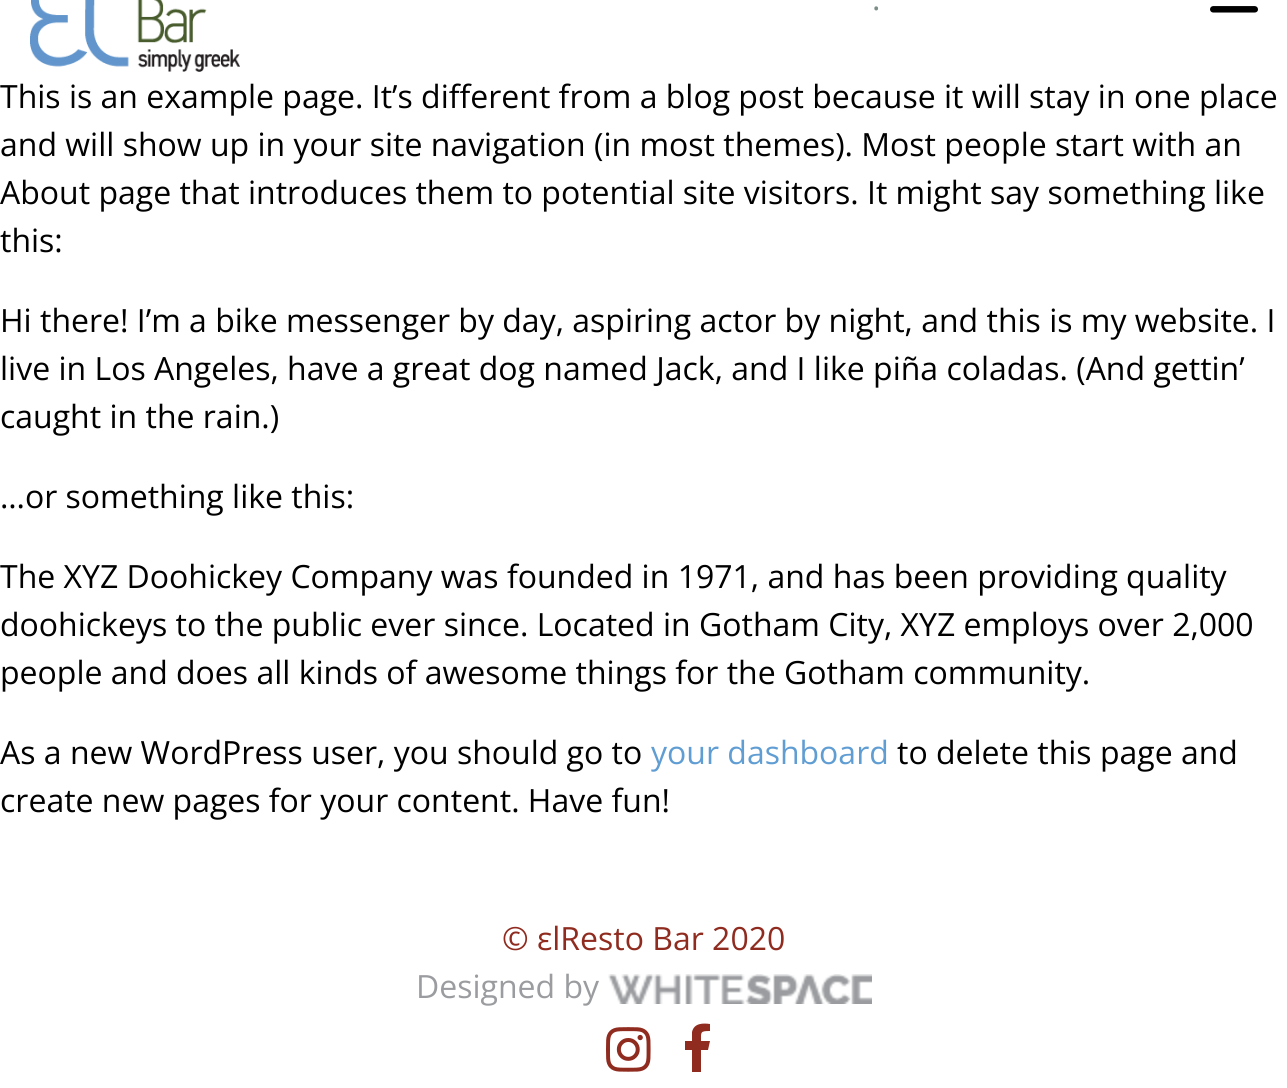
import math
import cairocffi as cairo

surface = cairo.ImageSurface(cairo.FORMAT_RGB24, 1287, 1088)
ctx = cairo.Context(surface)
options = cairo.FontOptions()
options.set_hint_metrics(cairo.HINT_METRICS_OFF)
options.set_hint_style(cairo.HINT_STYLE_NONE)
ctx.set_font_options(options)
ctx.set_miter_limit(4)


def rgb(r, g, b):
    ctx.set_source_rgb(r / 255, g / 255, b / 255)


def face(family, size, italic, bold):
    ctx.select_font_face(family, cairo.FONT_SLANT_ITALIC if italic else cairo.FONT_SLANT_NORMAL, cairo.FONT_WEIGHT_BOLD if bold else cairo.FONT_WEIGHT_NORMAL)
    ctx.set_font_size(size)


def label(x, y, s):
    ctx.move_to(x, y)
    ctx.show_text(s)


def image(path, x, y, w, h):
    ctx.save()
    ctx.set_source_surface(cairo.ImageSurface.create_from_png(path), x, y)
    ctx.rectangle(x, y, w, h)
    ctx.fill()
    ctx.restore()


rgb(255, 255, 255)
ctx.paint()
image('image0.png', 30, 0, 210, 72)
face('Open Sans', 32, 0, 0)
rgb(124, 142, 135)
label(872, 10, '.')
image('image1.png', 1210, 6, 48, 7)
rgb(0, 0, 0)
label(0, 108, 'This is an example page. It’s different from a blog post because it will stay in one place')
label(0, 156, 'and will show up in your site navigation (in most themes). Most people start with an')
label(0, 204, 'About page that introduces them to potential site visitors. It might say something like')
label(0, 252, 'this:')
label(0, 332, 'Hi there! I’m a bike messenger by day, aspiring actor by night, and this is my website. I')
label(0, 380, 'live in Los Angeles, have a great dog named Jack, and I like piña coladas. (And gettin’')
label(0, 428, 'caught in the rain.)')
label(0, 508, '…or something like this:')
label(0, 588, 'The XYZ Doohickey Company was founded in 1971, and has been providing quality')
label(0, 636, 'doohickeys to the public ever since. Located in Gotham City, XYZ employs over 2,000')
label(0, 684, 'people and does all kinds of awesome things for the Gotham community.')
label(0, 764, 'As a new WordPress user, you should go to')
rgb(96, 157, 211)
label(651, 764, 'your dashboard')
rgb(0, 0, 0)
label(897, 764, 'to delete this page and')
label(0, 812, 'create new pages for your content. Have fun!')
rgb(143, 43, 31)
label(502, 950, '© εlResto Bar 2020')
rgb(154, 156, 159)
label(416, 998, 'Designed by')
image('image2.png', 608, 974, 264, 30)
image('image3.png', 606, 1027, 45, 45)
rgb(143, 43, 31)
ctx.new_path()
ctx.move_to(710, 1024)
ctx.line_to(710, 1031)
ctx.curve_to(700, 1031, 701, 1032, 701, 1041)
ctx.line_to(710, 1041)
ctx.line_to(708, 1050)
ctx.line_to(701, 1050)
ctx.line_to(701, 1072)
ctx.line_to(692, 1072)
ctx.line_to(692, 1050)
ctx.line_to(685, 1050)
ctx.line_to(685, 1041)
ctx.line_to(692, 1041)
ctx.line_to(692, 1032)
ctx.curve_to(694, 1023, 703, 1023, 710, 1024)
ctx.close_path()
ctx.fill()
surface.write_to_png('render.png')
